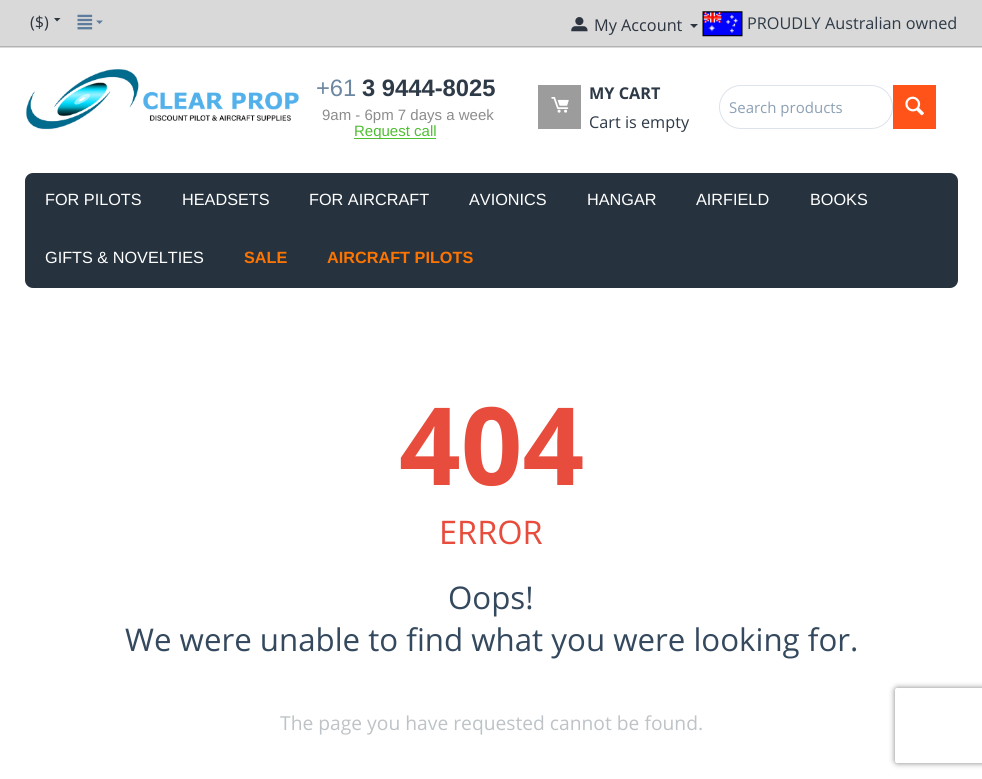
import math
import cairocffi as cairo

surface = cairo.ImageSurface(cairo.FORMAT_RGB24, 982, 779)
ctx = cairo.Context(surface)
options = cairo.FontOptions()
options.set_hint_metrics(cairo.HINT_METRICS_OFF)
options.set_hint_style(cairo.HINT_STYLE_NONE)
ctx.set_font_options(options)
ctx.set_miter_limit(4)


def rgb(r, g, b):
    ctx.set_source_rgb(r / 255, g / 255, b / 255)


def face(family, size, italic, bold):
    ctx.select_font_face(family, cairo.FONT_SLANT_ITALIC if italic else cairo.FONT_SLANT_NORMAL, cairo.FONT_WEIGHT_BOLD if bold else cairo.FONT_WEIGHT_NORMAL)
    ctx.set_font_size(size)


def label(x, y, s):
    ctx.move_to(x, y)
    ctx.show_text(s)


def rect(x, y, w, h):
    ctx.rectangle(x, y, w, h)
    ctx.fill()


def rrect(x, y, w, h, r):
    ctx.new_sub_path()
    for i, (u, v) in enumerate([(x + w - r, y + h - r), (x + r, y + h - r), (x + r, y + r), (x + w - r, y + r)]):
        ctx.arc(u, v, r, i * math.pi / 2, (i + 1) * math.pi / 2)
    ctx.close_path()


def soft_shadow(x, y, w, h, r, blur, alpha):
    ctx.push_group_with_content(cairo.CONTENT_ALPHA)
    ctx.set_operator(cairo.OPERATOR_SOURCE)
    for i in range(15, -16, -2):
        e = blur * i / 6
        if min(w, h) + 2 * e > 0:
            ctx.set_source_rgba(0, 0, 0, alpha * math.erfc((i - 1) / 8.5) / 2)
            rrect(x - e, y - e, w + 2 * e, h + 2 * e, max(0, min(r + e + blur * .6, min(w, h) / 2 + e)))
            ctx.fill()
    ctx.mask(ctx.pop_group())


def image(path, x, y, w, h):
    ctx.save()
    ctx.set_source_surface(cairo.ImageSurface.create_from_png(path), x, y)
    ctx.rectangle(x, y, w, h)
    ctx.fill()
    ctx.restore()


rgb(255, 255, 255)
ctx.paint()
rgb(217, 217, 217)
rect(0, 0, 982, 48)
rgb(179, 179, 179)
rect(0, 46, 982, 1)
face('Open Sans', 16.25, 0, 0)
rgb(45, 53, 64)
label(30, 28, '($)')
ctx.new_path()
ctx.move_to(57, 21.5)
ctx.line_to(54, 18)
ctx.line_to(60.5, 18)
ctx.close_path()
ctx.fill()
image('image0.png', 77, 14, 16, 16)
rgb(94, 125, 156)
ctx.new_path()
ctx.move_to(99.5, 24)
ctx.line_to(96, 20.5)
ctx.line_to(103, 20.5)
ctx.close_path()
ctx.fill()
image('image1.png', 571, 17, 17, 15)
rgb(45, 53, 64)
label(594, 31, 'My Account')
ctx.new_path()
ctx.move_to(694, 28)
ctx.line_to(690, 24)
ctx.line_to(698, 24)
ctx.close_path()
ctx.fill()
image('image2.png', 702, 11, 41, 26)
rgb(46, 58, 71)
label(747, 29, 'PROUDLY Australian owned')
image('image3.png', 25, 69, 274, 61)
face('Liberation Sans', 23.75, 0, 0)
rgb(109, 134, 161)
label(316, 96, '+61')
face('Liberation Sans', 23.75, 0, 1)
rgb(46, 58, 71)
label(362, 96, '3 9444-8025')
face('Liberation Sans', 15, 0, 0)
rgb(141, 140, 140)
label(322, 120, '9am - 6pm 7 days a week')
rgb(79, 190, 49)
rect(354, 138, 82, 1)
label(354, 136, 'Request call')
rgb(156, 156, 156)
rect(538, 85, 43, 44)
image('image4.png', 551, 97, 18, 16)
face('Open Sans', 16.25, 0, 1)
rgb(46, 58, 71)
label(589, 99, 'MY CART')
face('Open Sans', 16.25, 0, 0)
label(589, 128, 'Cart is empty')
rrect(719.5, 85.5, 173, 43, 21.5)
rgb(220, 227, 234)
ctx.set_line_width(1)
ctx.stroke()
face('Open Sans', 15, 0, 0)
rgb(140, 160, 181)
label(729, 113, 'Search products')
rgb(255, 83, 25)
rect(893, 85, 43, 44)
image('image5.png', 905, 96, 19, 20)
rgb(38, 50, 62)
rrect(25, 173, 933, 115, 8)
ctx.fill()
face('Liberation Sans', 16.25, 0, 0)
rgb(255, 255, 255)
label(45, 205, 'FOR PILOTS')
label(182, 205, 'HEADSETS')
label(309, 205, 'FOR AIRCRAFT')
label(469, 205, 'AVIONICS')
label(587, 205, 'HANGAR')
label(696, 205, 'AIRFIELD')
label(810, 205, 'BOOKS')
label(45, 263, 'GIFTS & NOVELTIES')
face('Liberation Sans', 16.25, 0, 1)
rgb(254, 116, 0)
label(244, 263, 'SALE')
label(327, 263, 'AIRCRAFT PILOTS')
face('Open Sans', 108, 0, 1)
rgb(231, 76, 60)
label(399, 485, '404')
face('Open Sans', 32.5, 0, 0)
label(439, 544, 'ERROR')
face('Open Sans', 31.25, 0, 0)
rgb(52, 73, 94)
label(448, 609, 'Oops!')
label(125, 651, 'We were unable to find what you were looking for.')
face('Open Sans', 19.25, 0, 0)
rgb(189, 195, 199)
label(280, 730, 'The page you have requested cannot be found.')
ctx.save()
ctx.set_fill_rule(cairo.FILL_RULE_EVEN_ODD)
ctx.new_path()
ctx.move_to(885, 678)
ctx.line_to(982, 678)
ctx.line_to(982, 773)
ctx.line_to(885, 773)
ctx.close_path()
ctx.move_to(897.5, 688)
ctx.line_to(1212.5, 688)
ctx.curve_to(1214, 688, 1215, 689, 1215, 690.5)
ctx.line_to(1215, 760.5)
ctx.curve_to(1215, 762, 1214, 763, 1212.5, 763)
ctx.line_to(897.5, 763)
ctx.curve_to(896, 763, 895, 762, 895, 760.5)
ctx.line_to(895, 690.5)
ctx.curve_to(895, 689, 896, 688, 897.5, 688)
ctx.close_path()
ctx.clip()
rgb(128, 128, 128)
soft_shadow(895, 688, 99, 75, 2.5, 3, 1)
ctx.restore()
surface.write_to_png('render.png')
